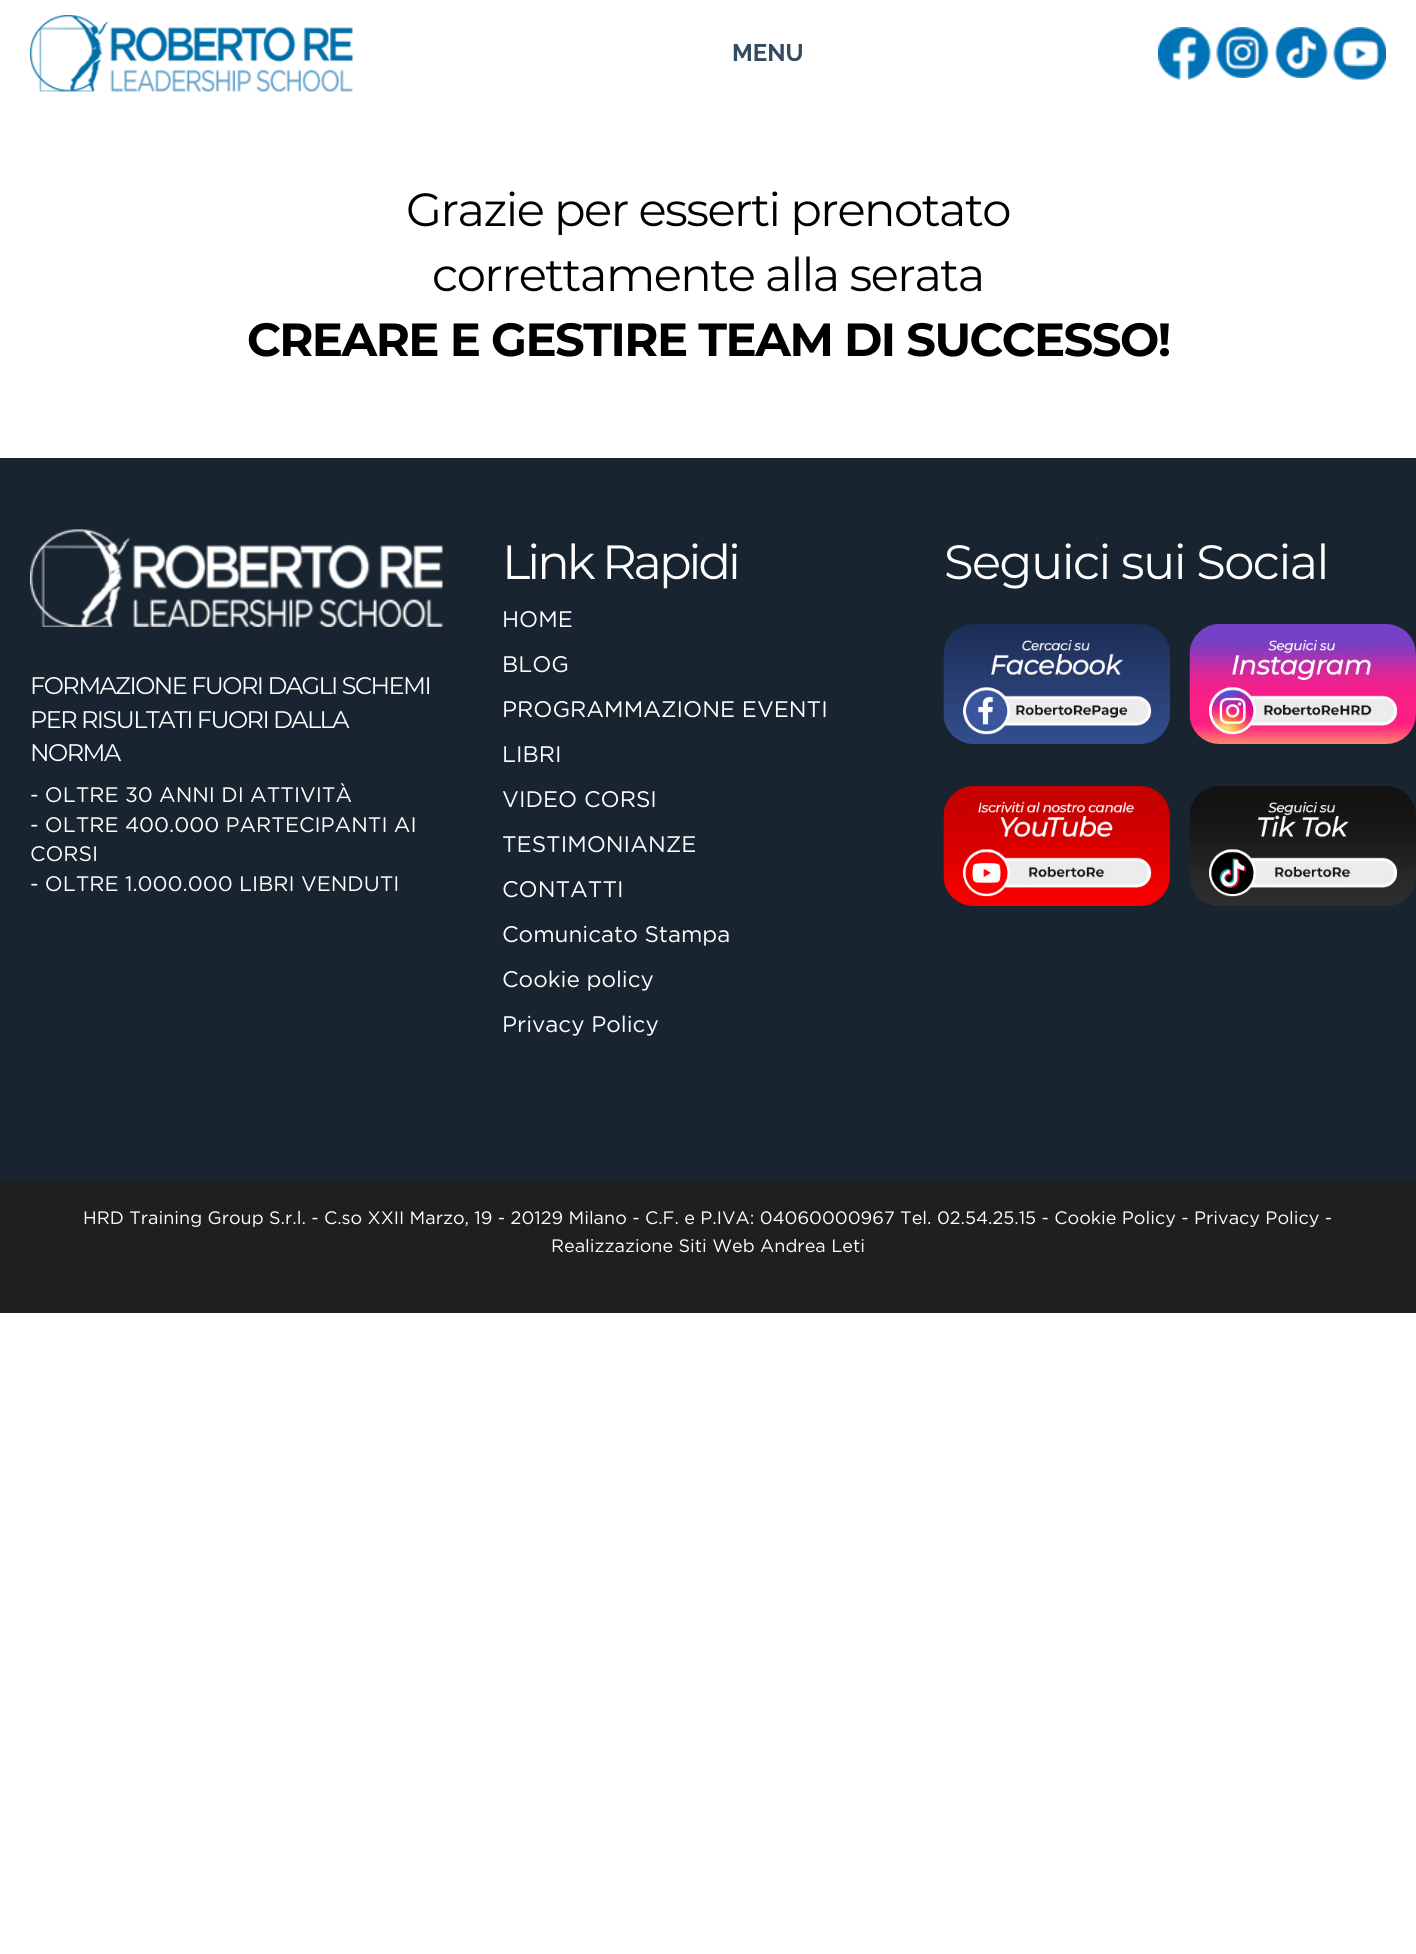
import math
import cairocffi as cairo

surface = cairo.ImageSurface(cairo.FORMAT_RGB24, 1416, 1954)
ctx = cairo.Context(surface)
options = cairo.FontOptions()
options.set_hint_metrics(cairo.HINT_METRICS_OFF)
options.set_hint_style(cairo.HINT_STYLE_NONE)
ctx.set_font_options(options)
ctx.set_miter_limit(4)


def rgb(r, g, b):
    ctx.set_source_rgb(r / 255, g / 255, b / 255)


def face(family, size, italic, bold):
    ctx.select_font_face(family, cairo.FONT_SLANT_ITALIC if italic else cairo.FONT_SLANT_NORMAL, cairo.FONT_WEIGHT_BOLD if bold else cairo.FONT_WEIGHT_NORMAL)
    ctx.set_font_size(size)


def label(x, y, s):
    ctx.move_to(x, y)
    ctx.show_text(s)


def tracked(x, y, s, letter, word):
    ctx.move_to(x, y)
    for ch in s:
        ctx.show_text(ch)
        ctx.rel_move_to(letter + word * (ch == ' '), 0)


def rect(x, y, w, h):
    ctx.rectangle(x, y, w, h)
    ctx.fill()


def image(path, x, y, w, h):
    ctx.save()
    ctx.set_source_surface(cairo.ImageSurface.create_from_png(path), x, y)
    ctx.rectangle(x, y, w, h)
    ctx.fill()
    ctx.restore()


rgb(255, 255, 255)
ctx.paint()
image('image0.png', 30, 15, 323, 77)
face('Raleway', 24, 0, 1)
rgb(52, 74, 95)
label(732, 61, 'MENU')
image('image1.png', 1158, 27, 53, 53)
image('image2.png', 1216, 27, 53, 51)
image('image3.png', 1275, 27, 53, 51)
image('image4.png', 1333, 27, 53, 53)
face('Montserrat', 46.5, 0, 0)
rgb(0, 0, 0)
tracked(406, 226, 'Grazie per esserti prenotato', -1.5, 0)
tracked(432, 291, 'correttamente alla serata', -1.5, 0)
face('Montserrat', 46.5, 0, 1)
tracked(247, 356, 'CREARE E GESTIRE TEAM DI SUCCESSO!', -1.5, 0)
rgb(24, 37, 48)
rect(0, 458, 1416, 723)
face('Montserrat', 48, 0, 0)
rgb(255, 255, 255)
tracked(502, 579, 'Link Rapidi', -3, 0)
face('Gotham', 22.5, 0, 0)
label(502, 627, 'HOME')
label(502, 672, 'BLOG')
label(502, 717, 'PROGRAMMAZIONE EVENTI')
label(502, 762, 'LIBRI')
label(502, 807, 'VIDEO CORSI')
label(502, 852, 'TESTIMONIANZE')
label(502, 897, 'CONTATTI')
label(502, 942, 'Comunicato Stampa')
label(502, 987, 'Cookie policy')
label(502, 1032, 'Privacy Policy')
face('Montserrat', 48, 0, 0)
tracked(944, 579, 'Seguici sui Social', -1.5, 0)
image('image5.png', 943, 624, 227, 120)
image('image6.png', 1189, 624, 227, 120)
image('image7.png', 943, 786, 227, 120)
image('image8.png', 1189, 786, 227, 120)
image('image9.png', 30, 529, 413, 98)
face('Montserrat', 24, 0, 0)
tracked(30, 694, 'FORMAZIONE FUORI DAGLI SCHEMI', -1.5, 0)
tracked(30, 728, 'PER RISULTATI FUORI DALLA', -1.5, 0)
tracked(30, 761, 'NORMA', -1.5, 0)
face('Gotham', 21, 0, 0)
label(30, 802, '- OLTRE 30 ANNI DI ATTIVITÀ')
label(30, 832, '- OLTRE 400.000 PARTECIPANTI AI')
label(30, 861, 'CORSI')
label(30, 891, '- OLTRE 1.000.000 LIBRI VENDUTI')
rgb(31, 31, 31)
rect(0, 1181, 1416, 132)
face('Gotham', 18, 0, 0)
rgb(255, 255, 255)
label(83, 1224, 'HRD Training Group S.r.l. - C.so XXII Marzo, 19 - 20129 Milano - C.F. e P.IVA: 04060000967 Tel. 02.54.25.15 - Cookie Policy - Privacy Policy -')
label(551, 1252, 'Realizzazione Siti Web Andrea Leti')
surface.write_to_png('render.png')
